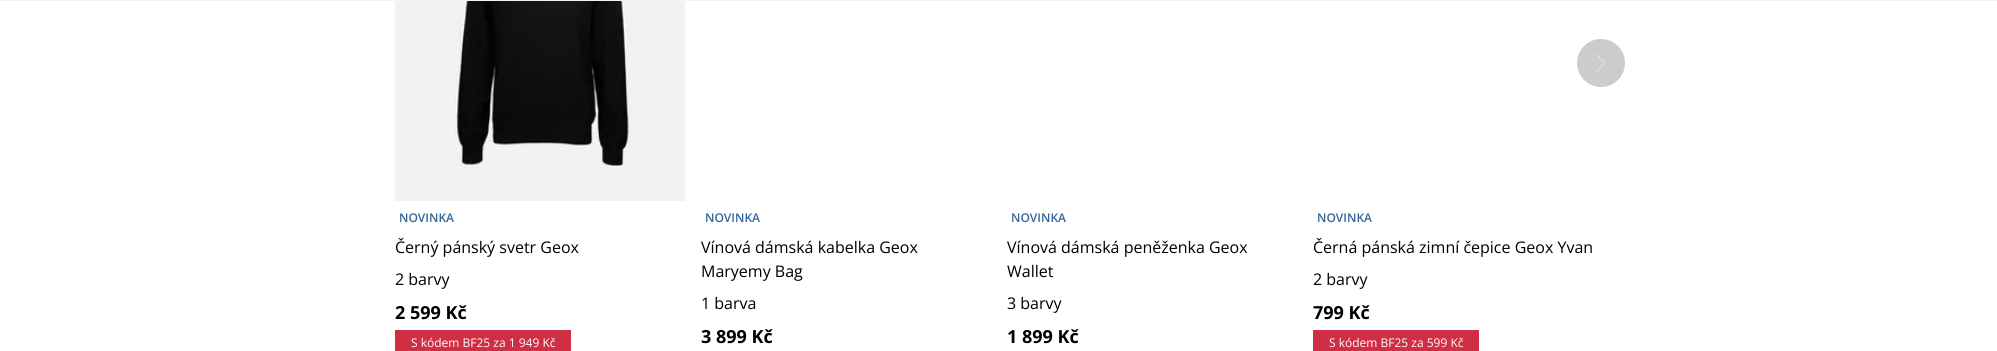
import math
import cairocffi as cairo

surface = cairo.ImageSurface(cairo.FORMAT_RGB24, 1997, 351)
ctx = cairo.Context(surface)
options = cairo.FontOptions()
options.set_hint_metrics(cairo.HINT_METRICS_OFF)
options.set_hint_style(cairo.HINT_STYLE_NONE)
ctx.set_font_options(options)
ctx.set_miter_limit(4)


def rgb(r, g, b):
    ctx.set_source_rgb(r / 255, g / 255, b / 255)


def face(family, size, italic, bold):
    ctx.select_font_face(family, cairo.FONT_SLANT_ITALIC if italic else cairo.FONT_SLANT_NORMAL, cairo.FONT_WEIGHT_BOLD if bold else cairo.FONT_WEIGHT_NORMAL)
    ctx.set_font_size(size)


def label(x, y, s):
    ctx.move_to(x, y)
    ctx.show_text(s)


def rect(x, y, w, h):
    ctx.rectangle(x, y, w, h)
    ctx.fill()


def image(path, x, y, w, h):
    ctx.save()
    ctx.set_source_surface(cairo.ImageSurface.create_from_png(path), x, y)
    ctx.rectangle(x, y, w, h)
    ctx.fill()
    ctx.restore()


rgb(255, 255, 255)
ctx.paint()
rgb(242, 242, 242)
rect(0, 0, 1997, 1)
rgb(204, 204, 204)
ctx.arc(1601, 63, 24, 0, 2 * math.pi)
ctx.fill()
image('image0.png', 1596, 54, 9, 18)
image('image1.png', 395, 1, 290, 200)
face('Open Sans SemiBold', 12, 0, 0)
rgb(51, 102, 153)
label(399, 222, 'NOVINKA')
face('Open Sans', 16, 0, 0)
rgb(0, 0, 0)
label(395, 253, 'Černý pánský svetr Geox')
label(395, 285, '2 barvy')
face('Open Sans', 18, 0, 1)
label(395, 319, '2 599 Kč')
rgb(207, 46, 69)
rect(395, 330, 176, 21)
face('Open Sans', 12, 0, 0)
rgb(255, 255, 255)
label(411, 347, 'S kódem BF25 za 1 949 Kč')
face('Open Sans SemiBold', 12, 0, 0)
rgb(51, 102, 153)
label(705, 222, 'NOVINKA')
face('Open Sans', 16, 0, 0)
rgb(0, 0, 0)
label(701, 253, 'Vínová dámská kabelka Geox')
label(701, 277, 'Maryemy Bag')
label(701, 309, '1 barva')
face('Open Sans', 18, 0, 1)
label(701, 343, '3 899 Kč')
face('Open Sans SemiBold', 12, 0, 0)
rgb(51, 102, 153)
label(1011, 222, 'NOVINKA')
face('Open Sans', 16, 0, 0)
rgb(0, 0, 0)
label(1007, 253, 'Vínová dámská peněženka Geox')
label(1007, 277, 'Wallet')
label(1007, 309, '3 barvy')
face('Open Sans', 18, 0, 1)
label(1007, 343, '1 899 Kč')
face('Open Sans SemiBold', 12, 0, 0)
rgb(51, 102, 153)
label(1317, 222, 'NOVINKA')
face('Open Sans', 16, 0, 0)
rgb(0, 0, 0)
label(1313, 253, 'Černá pánská zimní čepice Geox Yvan')
label(1313, 285, '2 barvy')
face('Open Sans', 18, 0, 1)
label(1313, 319, '799 Kč')
rgb(207, 46, 69)
rect(1313, 330, 166, 21)
face('Open Sans', 12, 0, 0)
rgb(255, 255, 255)
label(1329, 347, 'S kódem BF25 za 599 Kč')
surface.write_to_png('render.png')
